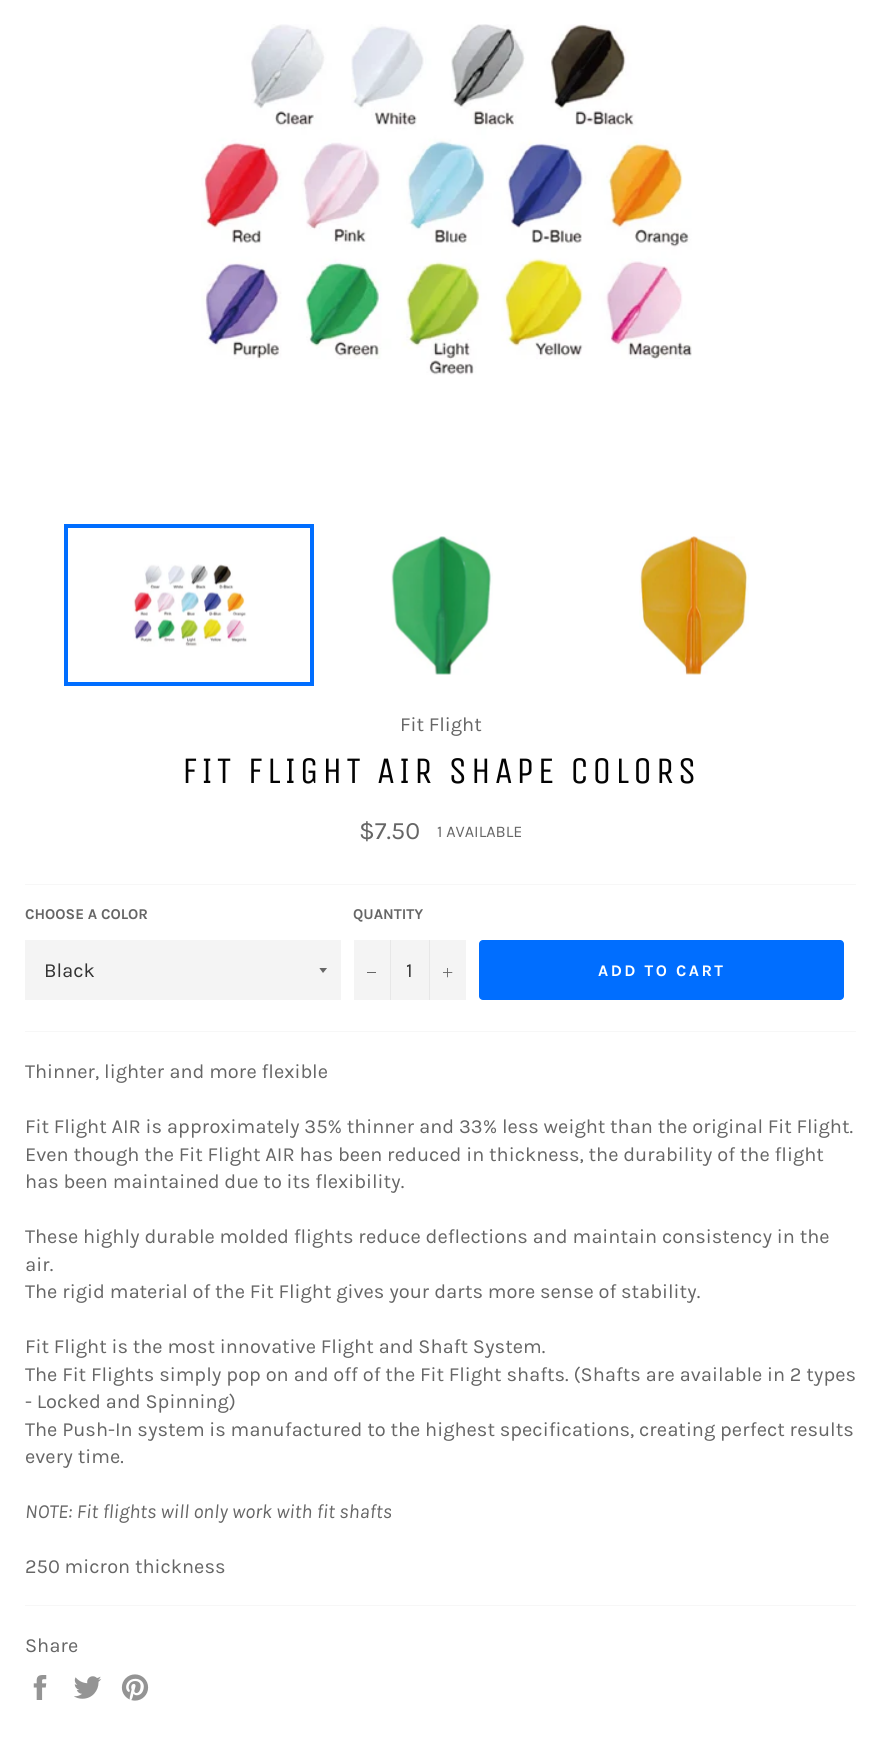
import math
import cairocffi as cairo

surface = cairo.ImageSurface(cairo.FORMAT_RGB24, 881, 1749)
ctx = cairo.Context(surface)
options = cairo.FontOptions()
options.set_hint_metrics(cairo.HINT_METRICS_OFF)
options.set_hint_style(cairo.HINT_STYLE_NONE)
ctx.set_font_options(options)
ctx.set_miter_limit(4)


def rgb(r, g, b):
    ctx.set_source_rgb(r / 255, g / 255, b / 255)


def face(family, size, italic, bold):
    ctx.select_font_face(family, cairo.FONT_SLANT_ITALIC if italic else cairo.FONT_SLANT_NORMAL, cairo.FONT_WEIGHT_BOLD if bold else cairo.FONT_WEIGHT_NORMAL)
    ctx.set_font_size(size)


def label(x, y, s):
    ctx.move_to(x, y)
    ctx.show_text(s)


def tracked(x, y, s, letter, word):
    ctx.move_to(x, y)
    for ch in s:
        ctx.show_text(ch)
        ctx.rel_move_to(letter + word * (ch == ' '), 0)


def rect(x, y, w, h):
    ctx.rectangle(x, y, w, h)
    ctx.fill()


def rrect(x, y, w, h, r):
    ctx.new_sub_path()
    for i, (u, v) in enumerate([(x + w - r, y + h - r), (x + r, y + h - r), (x + r, y + r), (x + w - r, y + r)]):
        ctx.arc(u, v, r, i * math.pi / 2, (i + 1) * math.pi / 2)
    ctx.close_path()


def image(path, x, y, w, h):
    ctx.save()
    ctx.set_source_surface(cairo.ImageSurface.create_from_png(path), x, y)
    ctx.rectangle(x, y, w, h)
    ctx.fill()
    ctx.restore()


rgb(255, 255, 255)
ctx.paint()
image('image0.png', 201, 24, 491, 351)
image('image1.png', 133, 564, 114, 83)
ctx.rectangle(66, 526, 246, 158)
rgb(0, 110, 255)
ctx.set_line_width(4)
ctx.stroke()
image('image2.png', 391, 536, 102, 139)
image('image3.png', 639, 536, 110, 139)
face('Karla', 20, 0, 0)
rgb(102, 102, 102)
label(400, 731, 'Fit Flight')
face('Unica One', 37.5, 0, 0)
rgb(3, 3, 3)
tracked(182, 783, 'FIT FLIGHT AIR SHAPE COLORS', 3.75, 0)
face('Karla', 25, 0, 0)
rgb(102, 102, 102)
label(359, 839, '$7.50')
face('Karla', 16.25, 0, 0)
label(437, 837, '1 AVAILABLE')
rgb(247, 247, 247)
rect(25, 884, 831, 1)
face('Karla', 15, 0, 1)
rgb(102, 102, 102)
label(25, 919, 'CHOOSE A COLOR')
rgb(244, 244, 244)
rect(25, 940, 316, 60)
ctx.save()
ctx.rectangle(319, 968, 10, 6)
ctx.clip()
rgb(102, 102, 102)
ctx.new_path()
ctx.move_to(319, 967.5)
ctx.line_to(323, 973)
ctx.line_to(327.5, 967.5)
ctx.close_path()
ctx.fill()
ctx.restore()
face('Karla', 20, 0, 0)
rgb(51, 51, 51)
label(44, 977, 'Black')
face('Karla', 15, 0, 1)
rgb(102, 102, 102)
label(353, 919, 'QUANTITY')
rgb(244, 244, 244)
rect(354, 940, 112, 60)
rgb(231, 231, 231)
rect(390, 940, 1, 60)
rgb(102, 102, 102)
rect(367, 972, 9, 1)
face('Karla', 20, 0, 0)
rgb(51, 51, 51)
label(406, 977, '1')
rgb(231, 231, 231)
rect(429, 940, 1, 60)
image('image4.png', 443, 968, 10, 10)
rgb(0, 110, 255)
rrect(479, 940, 365, 60, 4)
ctx.fill()
face('Karla', 16.25, 0, 1)
rgb(255, 255, 255)
tracked(598, 976, 'ADD TO CART', 2.5, 0)
rgb(247, 247, 247)
rect(25, 1031, 831, 1)
face('Karla', 20, 0, 0)
rgb(102, 102, 102)
label(25, 1078, 'Thinner, lighter and more flexible')
label(25, 1133, 'Fit Flight AIR is approximately 35% thinner and 33% less weight than the original Fit Flight.')
label(25, 1161, 'Even though the Fit Flight AIR has been reduced in thickness, the durability of the flight')
label(25, 1188, 'has been maintained due to its flexibility.')
label(25, 1243, 'These highly durable molded flights reduce deflections and maintain consistency in the')
label(25, 1271, 'air.')
label(25, 1298, 'The rigid material of the Fit Flight gives your darts more sense of stability.')
label(25, 1353, 'Fit Flight is the most innovative Flight and Shaft System.')
label(25, 1381, 'The Fit Flights simply pop on and off of the Fit Flight shafts. (Shafts are available in 2 types')
label(25, 1408, '- Locked and Spinning)')
label(25, 1436, 'The Push-In system is manufactured to the highest specifications, creating perfect results')
label(25, 1463, 'every time.')
face('Karla', 20, 1, 0)
label(25, 1518, 'NOTE: Fit flights will only work with fit shafts')
face('Karla', 20, 0, 0)
label(25, 1573, '250 micron thickness')
rgb(247, 247, 247)
rect(25, 1605, 831, 1)
rgb(102, 102, 102)
label(25, 1652, 'Share')
image('image5.png', 33, 1675, 14, 25)
image('image6.png', 74, 1676, 28, 23)
image('image7.png', 121, 1674, 28, 27)
surface.write_to_png('render.png')
